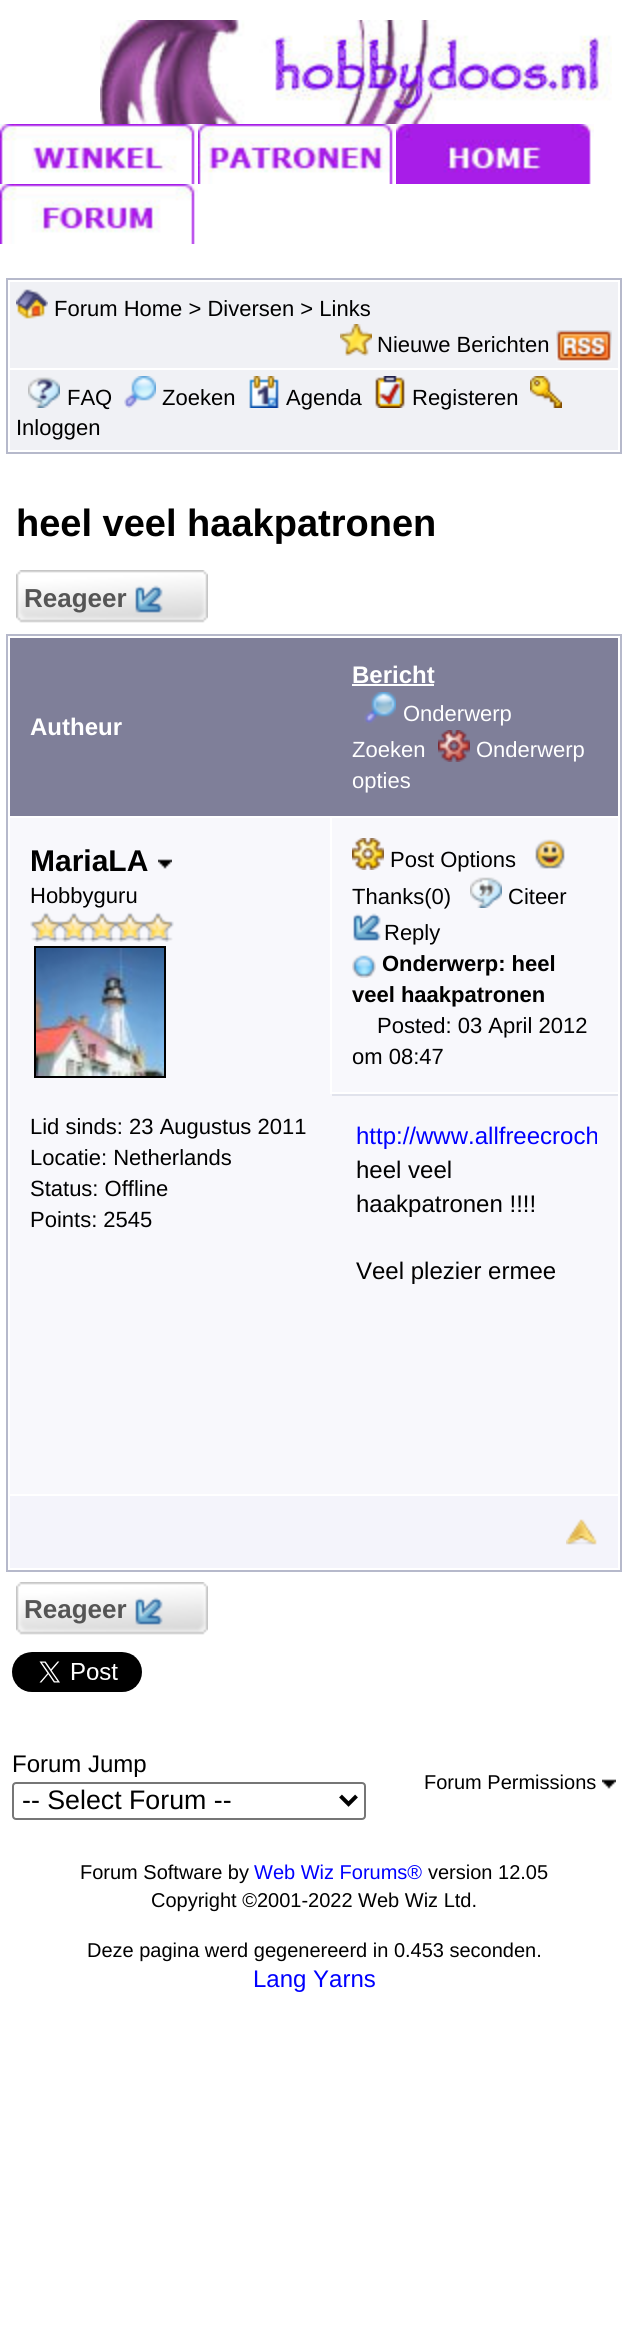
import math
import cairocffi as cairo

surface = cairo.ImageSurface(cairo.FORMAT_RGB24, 628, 2335)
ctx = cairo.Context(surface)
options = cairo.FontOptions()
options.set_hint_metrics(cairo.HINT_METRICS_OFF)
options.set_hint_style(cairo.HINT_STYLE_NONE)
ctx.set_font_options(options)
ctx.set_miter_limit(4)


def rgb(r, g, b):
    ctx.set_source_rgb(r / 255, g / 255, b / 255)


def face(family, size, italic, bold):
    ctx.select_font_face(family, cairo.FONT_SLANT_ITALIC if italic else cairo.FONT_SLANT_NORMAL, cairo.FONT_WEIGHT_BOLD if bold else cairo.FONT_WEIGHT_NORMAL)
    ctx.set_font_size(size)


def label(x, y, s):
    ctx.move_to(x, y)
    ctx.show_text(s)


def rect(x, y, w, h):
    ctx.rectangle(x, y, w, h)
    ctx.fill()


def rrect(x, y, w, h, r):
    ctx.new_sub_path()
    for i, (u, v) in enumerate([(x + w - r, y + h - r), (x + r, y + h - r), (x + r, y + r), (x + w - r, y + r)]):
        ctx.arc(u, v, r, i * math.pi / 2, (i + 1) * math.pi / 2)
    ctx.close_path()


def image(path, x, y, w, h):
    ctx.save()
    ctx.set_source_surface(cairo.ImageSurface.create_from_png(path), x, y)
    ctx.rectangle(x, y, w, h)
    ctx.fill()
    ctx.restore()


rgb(255, 255, 255)
ctx.paint()
image('image0.png', 100, 20, 512, 104)
image('image1.png', 0, 124, 198, 60)
image('image2.png', 198, 124, 198, 60)
image('image3.png', 396, 124, 198, 60)
image('image4.png', 0, 184, 198, 60)
ctx.rectangle(7, 279, 614, 174)
rgb(182, 185, 203)
ctx.stroke()
rgb(240, 241, 245)
rect(10, 282, 608, 86)
image('image5.png', 16, 289, 32, 30)
face('Liberation Sans', 22, 0, 0)
rgb(0, 0, 0)
label(54, 316, 'Forum Home > Diversen > Links')
image('image6.png', 340, 324, 32, 32)
label(377, 352, 'Nieuwe Berichten')
image('image7.png', 556, 330, 56, 32)
rgb(240, 241, 245)
rect(10, 370, 608, 80)
image('image8.png', 28, 377, 32, 31)
rgb(0, 0, 0)
label(67, 405, 'FAQ')
image('image9.png', 124, 376, 32, 32)
label(162, 405, 'Zoeken')
image('image10.png', 249, 376, 30, 32)
label(286, 405, 'Agenda')
image('image11.png', 375, 376, 30, 32)
label(412, 405, 'Registeren')
image('image12.png', 530, 376, 32, 32)
label(16, 435, 'Inloggen')
face('Liberation Sans', 38, 0, 1)
label(16, 536, 'heel veel haakpatronen')
image('image13.png', 16, 570, 192, 53)
face('Liberation Sans', 26, 0, 1)
rgb(85, 85, 85)
label(24, 607, 'Reageer')
image('image14.png', 135, 585, 28, 28)
ctx.rectangle(7, 635, 614, 936)
rgb(182, 185, 203)
ctx.stroke()
rgb(127, 127, 153)
rect(10, 638, 608, 178)
face('Liberation Sans', 24, 0, 1)
rgb(255, 255, 255)
label(30, 735, 'Autheur')
label(352, 683, 'Bericht')
rect(352, 684, 82, 2)
image('image15.png', 364, 692, 32, 32)
face('Liberation Sans', 22, 0, 0)
label(403, 721, 'Onderwerp')
label(352, 757, 'Zoeken')
image('image16.png', 438, 730, 32, 32)
label(476, 757, 'Onderwerp')
label(352, 788, 'opties')
rgb(248, 248, 252)
rect(10, 818, 320, 276)
face('Liberation Sans', 30, 0, 1)
rgb(0, 0, 0)
label(30, 871, 'MariaLA')
image('image17.png', 158, 859, 14, 10)
face('Liberation Sans', 22, 0, 0)
label(30, 903, 'Hobbyguru')
image('image18.png', 30, 912, 144, 30)
ctx.rectangle(35, 947, 130, 130)
ctx.stroke()
image('image19.png', 36, 948, 128, 128)
rgb(248, 248, 252)
rect(10, 1094, 608, 400)
rgb(0, 0, 0)
label(30, 1134, 'Lid sinds: 23 Augustus 2011')
label(30, 1165, 'Locatie: Netherlands')
label(30, 1196, 'Status: Offline')
label(30, 1227, 'Points: 2545')
rgb(248, 248, 252)
rect(332, 818, 286, 274)
image('image20.png', 352, 838, 32, 32)
rgb(0, 0, 0)
label(390, 867, 'Post Options')
image('image21.png', 535, 839, 30, 30)
label(352, 904, 'Thanks(0)')
image('image22.png', 470, 877, 32, 31)
label(508, 904, 'Citeer')
image('image23.png', 353, 913, 28, 28)
label(384, 940, 'Reply')
image('image24.png', 352, 954, 24, 24)
face('Liberation Sans', 22, 0, 1)
label(382, 971, 'Onderwerp: heel')
label(352, 1002, 'veel haakpatronen')
face('Liberation Sans', 22, 0, 0)
label(377, 1033, 'Posted: 03 April 2012')
label(352, 1064, 'om 08:47')
rgb(225, 227, 236)
rect(332, 1094, 286, 2)
face('Liberation Sans', 24, 0, 0)
rgb(0, 0, 255)
label(356, 1144, 'http://www.allfreecroch')
rgb(0, 0, 0)
label(356, 1178, 'heel veel')
label(356, 1212, 'haakpatronen !!!!')
label(356, 1279, 'Veel plezier ermee')
rgb(244, 244, 251)
rect(10, 1496, 608, 72)
image('image25.png', 566, 1519, 31, 26)
image('image13.png', 16, 1582, 192, 53)
face('Liberation Sans', 26, 0, 1)
rgb(85, 85, 85)
label(24, 1618, 'Reageer')
image('image14.png', 135, 1597, 28, 28)
image('image26.png', 12, 1652, 130, 40)
face('Liberation Sans', 24, 0, 0)
rgb(0, 0, 0)
label(12, 1772, 'Forum Jump')
rrect(13, 1783, 352, 36, 3)
rgb(118, 118, 118)
ctx.stroke()
ctx.new_path()
ctx.move_to(340.5, 1796)
ctx.line_to(348.5, 1804)
ctx.line_to(356.5, 1796)
rgb(0, 0, 0)
ctx.set_line_width(4)
ctx.stroke()
face('Liberation Sans', 26.75, 0, 0)
label(22, 1809, '-- Select Forum --')
face('Liberation Sans', 20, 0, 0)
label(424, 1789, 'Forum Permissions')
image('image27.png', 602, 1779, 14, 10)
label(80, 1879, 'Forum Software by')
rgb(0, 0, 255)
label(254, 1879, 'Web Wiz Forums®')
rgb(0, 0, 0)
label(428, 1879, 'version 12.05')
label(151, 1907, 'Copyright ©2001-2022 Web Wiz Ltd.')
label(87, 1957, 'Deze pagina werd gegenereerd in 0.453 seconden.')
face('Liberation Sans', 24, 0, 0)
rgb(0, 0, 255)
label(253, 1987, 'Lang Yarns')
surface.write_to_png('render.png')
